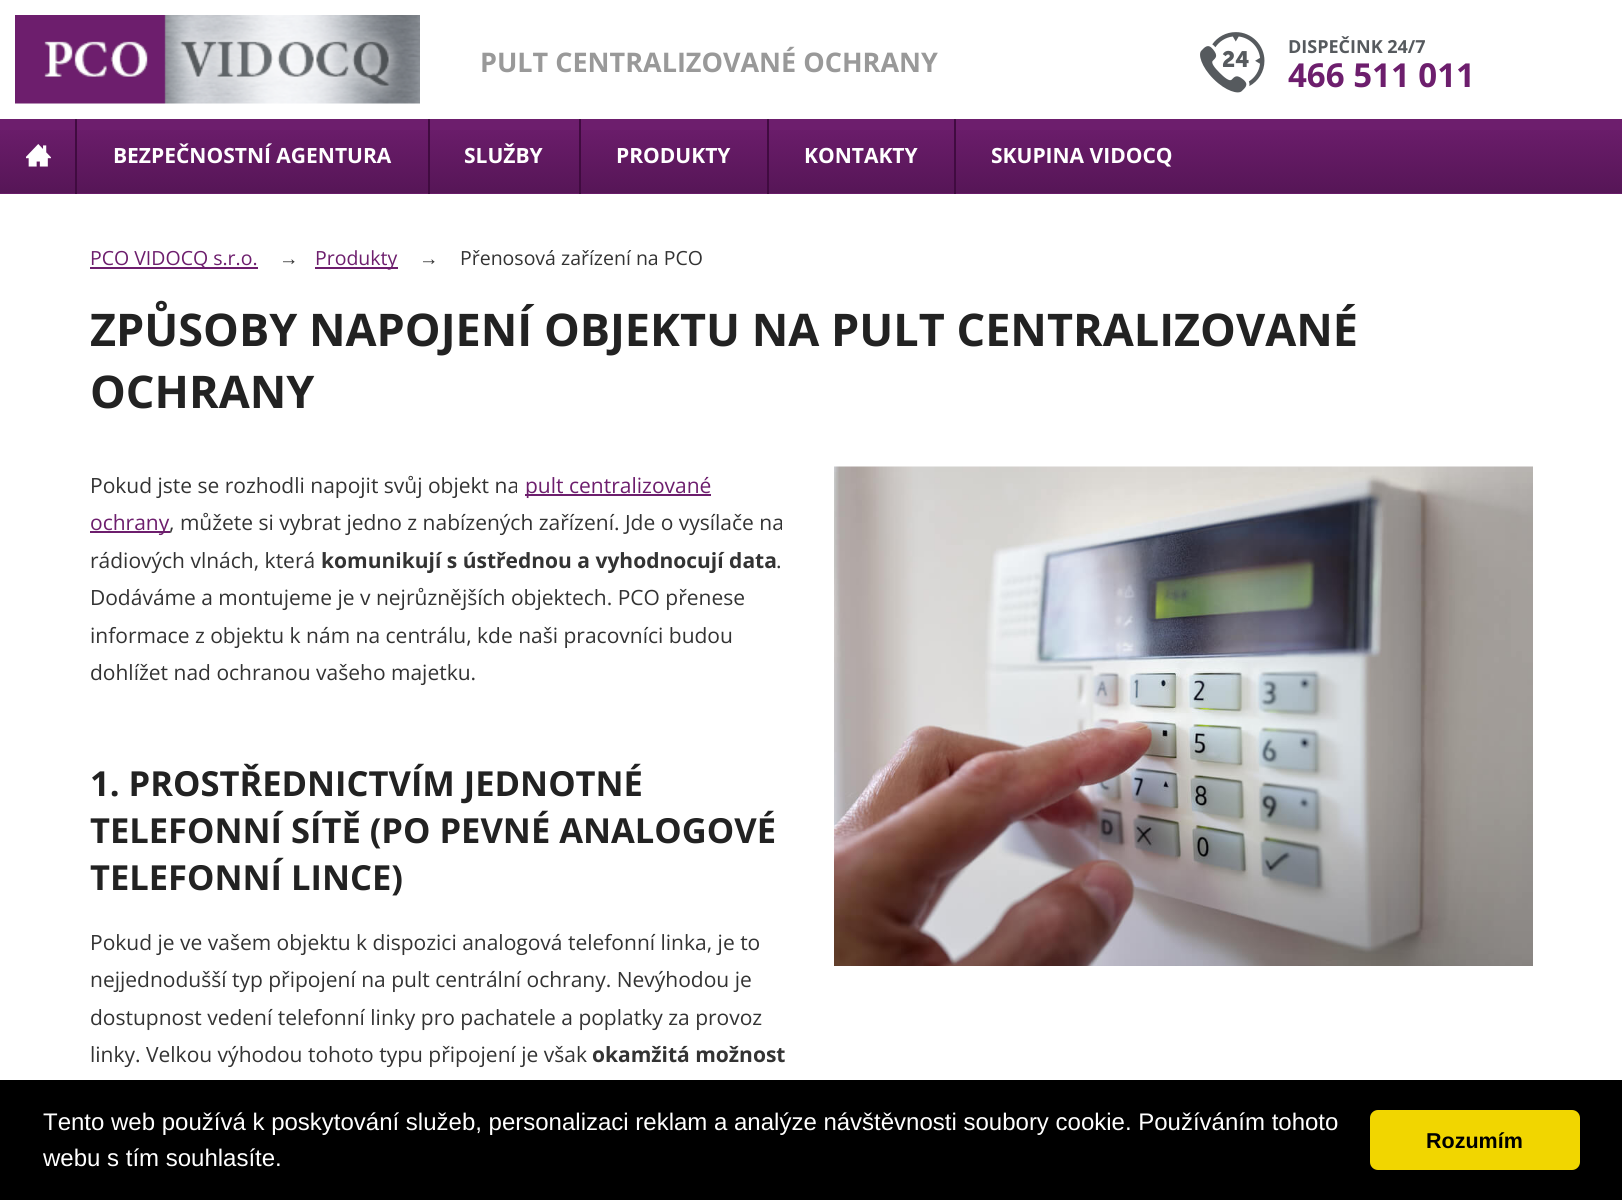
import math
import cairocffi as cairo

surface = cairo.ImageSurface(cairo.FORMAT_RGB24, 1622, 1200)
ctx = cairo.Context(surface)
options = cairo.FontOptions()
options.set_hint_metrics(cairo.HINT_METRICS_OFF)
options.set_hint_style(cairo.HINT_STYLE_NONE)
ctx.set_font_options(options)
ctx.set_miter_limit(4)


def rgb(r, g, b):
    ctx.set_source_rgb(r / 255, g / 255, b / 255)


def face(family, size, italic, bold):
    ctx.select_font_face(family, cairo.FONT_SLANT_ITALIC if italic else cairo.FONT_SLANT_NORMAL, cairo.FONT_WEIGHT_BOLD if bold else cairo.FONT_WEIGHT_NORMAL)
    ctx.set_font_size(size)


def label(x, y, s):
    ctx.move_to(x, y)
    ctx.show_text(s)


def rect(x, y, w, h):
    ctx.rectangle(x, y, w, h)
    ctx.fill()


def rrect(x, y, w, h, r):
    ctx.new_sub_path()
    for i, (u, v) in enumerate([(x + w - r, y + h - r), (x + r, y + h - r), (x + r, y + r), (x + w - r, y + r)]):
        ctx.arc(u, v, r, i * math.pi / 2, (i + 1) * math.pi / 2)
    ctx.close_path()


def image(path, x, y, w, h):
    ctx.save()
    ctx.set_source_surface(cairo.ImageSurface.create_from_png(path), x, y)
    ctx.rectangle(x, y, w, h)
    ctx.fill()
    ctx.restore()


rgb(255, 255, 255)
ctx.paint()
image('image0.png', 15, 15, 405, 89)
face('Open Sans', 27, 0, 1)
rgb(153, 153, 153)
label(480, 72, 'PULT CENTRALIZOVANÉ OCHRANY')
image('image1.png', 1200, 32, 65, 61)
face('Open Sans', 18, 0, 1)
rgb(86, 90, 94)
label(1288, 53, 'DISPEČINK 24/7')
face('Open Sans', 33, 0, 1)
rgb(109, 30, 109)
label(1288, 87, '466 511 011')
rect(0, 119, 1622, 75)
image('image2.png', 0, 130, 1622, 64)
rgb(64, 11, 64)
rect(75, 119, 2, 75)
image('image3.png', 26, 144, 25, 23)
rect(428, 119, 2, 75)
face('Open Sans', 21, 0, 1)
rgb(255, 255, 255)
label(113, 163, 'BEZPEČNOSTNÍ AGENTURA')
rgb(64, 11, 64)
rect(579, 119, 2, 75)
rgb(255, 255, 255)
label(464, 163, 'SLUŽBY')
rgb(64, 11, 64)
rect(767, 119, 2, 75)
rgb(255, 255, 255)
label(616, 163, 'PRODUKTY')
rgb(64, 11, 64)
rect(954, 119, 2, 75)
rgb(255, 255, 255)
label(804, 163, 'KONTAKTY')
label(991, 163, 'SKUPINA VIDOCQ')
rgb(109, 30, 109)
rect(90, 267, 168, 2)
face('Open Sans', 19.5, 0, 0)
label(90, 265, 'PCO VIDOCQ s.r.o.')
face('Liberation Sans', 19.5, 0, 0)
rgb(51, 51, 51)
label(279, 265, '→')
rgb(109, 30, 109)
rect(315, 267, 83, 2)
face('Open Sans', 19.5, 0, 0)
label(315, 265, 'Produkty')
face('Liberation Sans', 19.5, 0, 0)
rgb(51, 51, 51)
label(419, 265, '→')
face('Open Sans', 19.5, 0, 0)
label(460, 265, 'Přenosová zařízení na PCO')
face('Open Sans', 45, 0, 1)
rgb(34, 34, 34)
label(90, 346, 'ZPŮSOBY NAPOJENÍ OBJEKTU NA PULT CENTRALIZOVANÉ')
label(90, 408, 'OCHRANY')
face('Open Sans', 21, 0, 0)
rgb(51, 51, 51)
label(90, 493, 'Pokud jste se rozhodli napojit svůj objekt na')
rgb(109, 30, 109)
rect(525, 494, 186, 2)
label(525, 493, 'pult centralizované')
rect(90, 531, 80, 2)
label(90, 530, 'ochrany')
rgb(51, 51, 51)
label(169, 530, ', můžete si vybrat jedno z nabízených zařízení. Jde o vysílače na')
label(90, 568, 'rádiových vlnách, která')
face('Open Sans', 21, 0, 1)
label(321, 568, 'komunikují s ústřednou a vyhodnocují data')
face('Open Sans', 21, 0, 0)
label(776, 568, '.')
label(90, 605, 'Dodáváme a montujeme je v nejrůznějších objektech. PCO přenese')
label(90, 643, 'informace z objektu k nám na centrálu, kde naši pracovníci budou')
label(90, 680, 'dohlížet nad ochranou vašeho majetku.')
face('Open Sans', 34.5, 0, 1)
rgb(34, 34, 34)
label(90, 796, '1. PROSTŘEDNICTVÍM JEDNOTNÉ')
label(90, 843, 'TELEFONNÍ SÍTĚ (PO PEVNÉ ANALOGOVÉ')
label(90, 890, 'TELEFONNÍ LINCE)')
face('Open Sans', 21, 0, 0)
rgb(51, 51, 51)
label(90, 950, 'Pokud je ve vašem objektu k dispozici analogová telefonní linka, je to')
label(90, 987, 'nejjednodušší typ připojení na pult centrální ochrany. Nevýhodou je')
label(90, 1025, 'dostupnost vedení telefonní linky pro pachatele a poplatky za provoz')
label(90, 1062, 'linky. Velkou výhodou tohoto typu připojení je však')
face('Open Sans', 21, 0, 1)
label(592, 1062, 'okamžitá možnost')
image('image4.png', 834, 466, 699, 500)
rgb(0, 0, 0)
rect(0, 1080, 1622, 120)
face('Liberation Sans', 24, 0, 0)
rgb(255, 255, 255)
label(43, 1130, 'Tento web používá k poskytování služeb, personalizaci reklam a analýze návštěvnosti soubory cookie. Používáním tohoto')
label(43, 1166, 'webu s tím souhlasíte.')
rgb(241, 214, 0)
rrect(1370, 1110, 210, 60, 8)
ctx.fill()
face('Liberation Sans', 21.5, 0, 1)
rgb(0, 0, 0)
label(1426, 1148, 'Rozumím')
surface.write_to_png('render.png')
